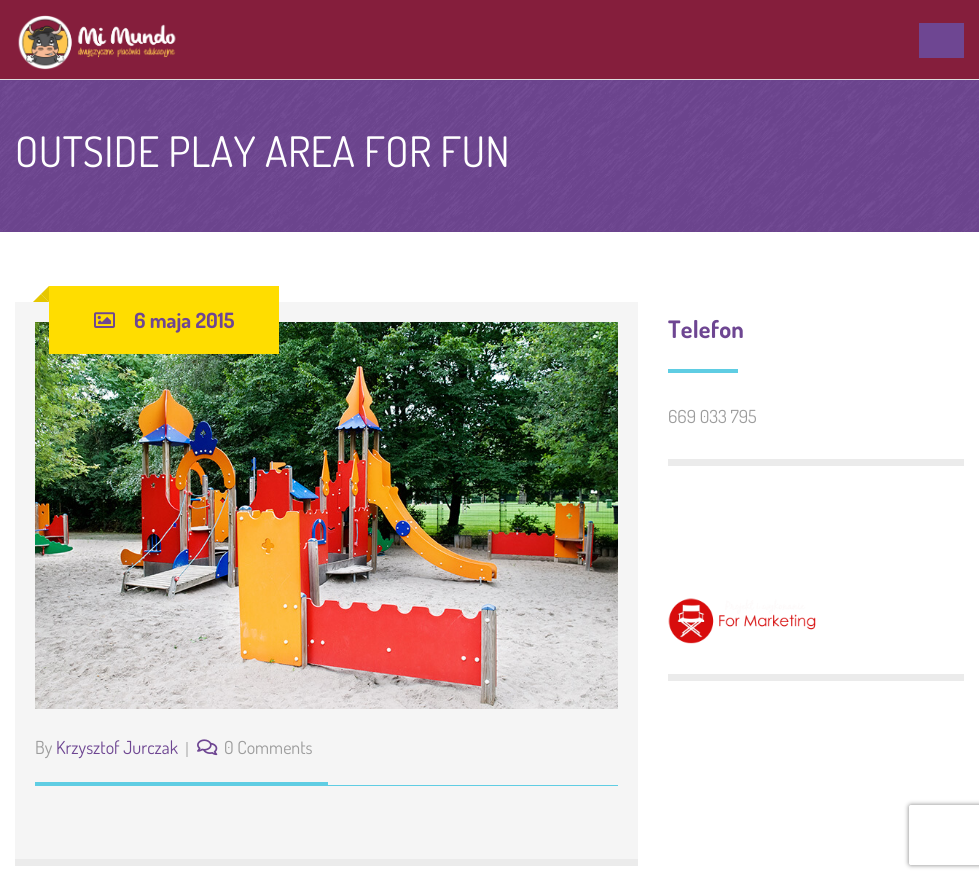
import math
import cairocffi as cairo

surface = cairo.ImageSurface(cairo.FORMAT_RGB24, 979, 879)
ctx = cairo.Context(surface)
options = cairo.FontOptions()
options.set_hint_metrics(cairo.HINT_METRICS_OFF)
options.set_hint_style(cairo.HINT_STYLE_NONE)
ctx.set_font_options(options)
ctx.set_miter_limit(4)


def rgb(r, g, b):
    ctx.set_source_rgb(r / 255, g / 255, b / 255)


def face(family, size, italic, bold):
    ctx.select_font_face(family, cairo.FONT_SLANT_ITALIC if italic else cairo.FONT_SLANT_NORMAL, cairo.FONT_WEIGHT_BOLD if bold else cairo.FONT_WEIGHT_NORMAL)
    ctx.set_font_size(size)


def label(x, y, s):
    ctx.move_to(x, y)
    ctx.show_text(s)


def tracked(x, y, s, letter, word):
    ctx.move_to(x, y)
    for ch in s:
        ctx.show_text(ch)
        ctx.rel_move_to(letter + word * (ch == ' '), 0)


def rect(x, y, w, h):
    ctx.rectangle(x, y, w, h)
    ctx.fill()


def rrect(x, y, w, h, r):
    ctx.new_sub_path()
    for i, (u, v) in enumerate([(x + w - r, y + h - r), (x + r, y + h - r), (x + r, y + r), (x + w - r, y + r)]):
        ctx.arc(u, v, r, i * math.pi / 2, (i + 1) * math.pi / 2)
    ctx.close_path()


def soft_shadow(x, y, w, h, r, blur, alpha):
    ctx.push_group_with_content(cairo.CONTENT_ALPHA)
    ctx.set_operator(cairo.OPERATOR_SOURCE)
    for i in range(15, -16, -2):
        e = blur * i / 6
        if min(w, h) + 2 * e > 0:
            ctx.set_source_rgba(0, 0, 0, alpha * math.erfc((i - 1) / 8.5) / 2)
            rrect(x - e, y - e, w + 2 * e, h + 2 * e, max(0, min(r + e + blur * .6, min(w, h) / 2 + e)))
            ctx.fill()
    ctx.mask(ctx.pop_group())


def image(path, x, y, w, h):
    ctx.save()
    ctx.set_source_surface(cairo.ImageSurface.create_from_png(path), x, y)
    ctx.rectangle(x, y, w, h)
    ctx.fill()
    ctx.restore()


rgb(255, 255, 255)
ctx.paint()
rgb(133, 30, 60)
rect(0, 0, 979, 79)
rgb(222, 222, 222)
rect(0, 79, 979, 1)
image('image0.png', 18, 15, 158, 55)
rgb(110, 70, 146)
rect(919, 23, 45, 35)
rect(0, 80, 979, 152)
image('image1.png', 0, 80, 979, 152)
face('Dosis', 42, 0, 0)
rgb(255, 255, 255)
tracked(15, 167, 'OUTSIDE PLAY AREA FOR FUN', 0.4, 0)
rgb(245, 245, 245)
rect(15, 302, 623, 557)
rgb(235, 235, 235)
rect(15, 859, 623, 7)
image('image3.png', 35, 322, 583, 387)
rgb(255, 221, 0)
rect(49, 286, 230, 68)
ctx.new_path()
ctx.move_to(49, 286)
ctx.line_to(49, 302)
ctx.line_to(41, 294)
ctx.close_path()
ctx.fill()
ctx.new_path()
ctx.move_to(49, 302)
ctx.line_to(33, 302)
ctx.line_to(41, 294)
ctx.close_path()
ctx.fill()
ctx.set_source_rgba(0, 0, 0, 0.1)
ctx.new_path()
ctx.move_to(49, 286)
ctx.line_to(49, 302)
ctx.line_to(41, 294)
ctx.close_path()
ctx.fill()
ctx.new_path()
ctx.move_to(49, 302)
ctx.line_to(33, 302)
ctx.line_to(41, 294)
ctx.close_path()
ctx.fill()
image('image2.png', 94, 312, 21, 16)
face('Dosis', 21, 0, 1)
rgb(110, 70, 146)
label(134, 328, '6 maja 2015')
rgb(95, 205, 227)
rect(35, 785, 583, 1)
face('Dosis', 18, 0, 0)
rgb(156, 156, 156)
label(35, 754, 'By')
rgb(110, 70, 146)
label(56, 754, 'Krzysztof Jurczak')
rgb(203, 203, 203)
rect(186, 742, 2, 15)
image('image4.png', 197, 739, 21, 17)
rgb(156, 156, 156)
label(224, 754, '0 Comments')
rgb(95, 205, 227)
rect(35, 782, 293, 3)
rgb(235, 235, 235)
rect(668, 459, 296, 7)
face('Dosis', 24, 0, 1)
rgb(110, 70, 146)
tracked(668, 338, 'Telefon', 0.25, 0)
rgb(95, 205, 227)
rect(668, 369, 70, 4)
face('Dosis', 18, 0, 0)
rgb(156, 156, 156)
label(668, 423, '669 033 795')
rgb(235, 235, 235)
rect(668, 674, 296, 7)
image('image5.png', 668, 598, 148, 46)
ctx.save()
ctx.set_fill_rule(cairo.FILL_RULE_EVEN_ODD)
ctx.new_path()
ctx.move_to(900, 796)
ctx.line_to(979, 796)
ctx.line_to(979, 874)
ctx.line_to(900, 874)
ctx.close_path()
ctx.move_to(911, 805)
ctx.line_to(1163, 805)
ctx.curve_to(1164, 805, 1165, 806, 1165, 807)
ctx.line_to(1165, 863)
ctx.curve_to(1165, 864, 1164, 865, 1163, 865)
ctx.line_to(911, 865)
ctx.curve_to(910, 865, 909, 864, 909, 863)
ctx.line_to(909, 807)
ctx.curve_to(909, 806, 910, 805, 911, 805)
ctx.close_path()
ctx.clip()
rgb(128, 128, 128)
soft_shadow(909, 805, 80, 60, 2, 2.5, 1)
ctx.restore()
surface.write_to_png('render.png')
